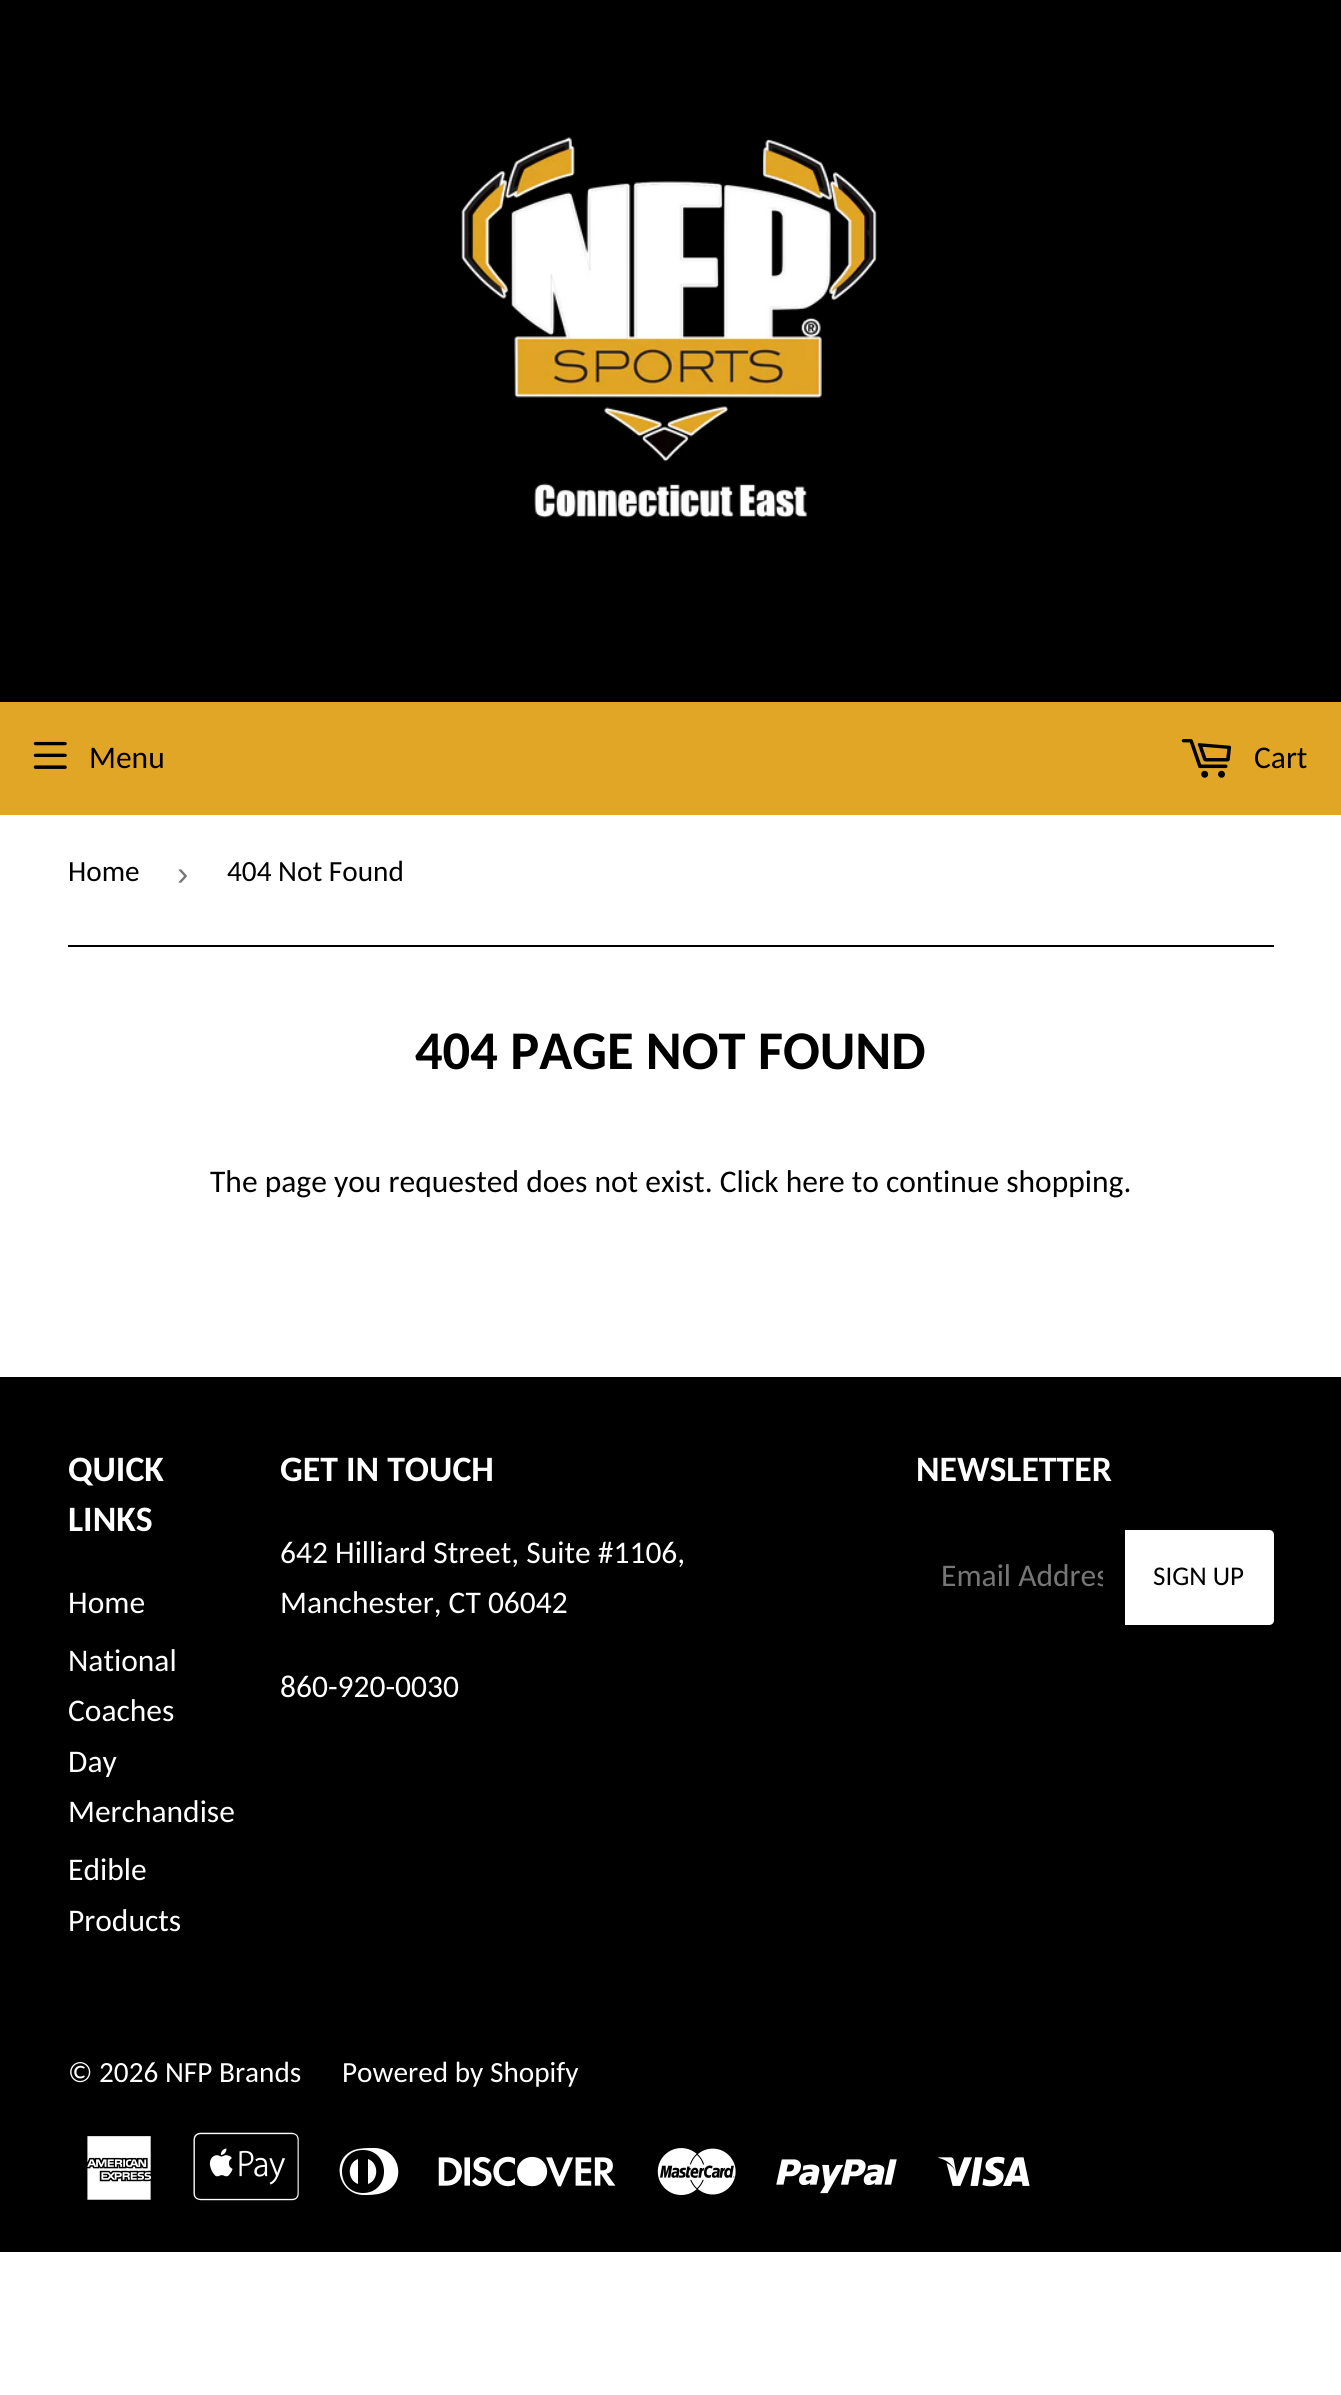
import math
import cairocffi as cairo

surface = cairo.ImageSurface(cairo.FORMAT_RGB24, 1341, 2395)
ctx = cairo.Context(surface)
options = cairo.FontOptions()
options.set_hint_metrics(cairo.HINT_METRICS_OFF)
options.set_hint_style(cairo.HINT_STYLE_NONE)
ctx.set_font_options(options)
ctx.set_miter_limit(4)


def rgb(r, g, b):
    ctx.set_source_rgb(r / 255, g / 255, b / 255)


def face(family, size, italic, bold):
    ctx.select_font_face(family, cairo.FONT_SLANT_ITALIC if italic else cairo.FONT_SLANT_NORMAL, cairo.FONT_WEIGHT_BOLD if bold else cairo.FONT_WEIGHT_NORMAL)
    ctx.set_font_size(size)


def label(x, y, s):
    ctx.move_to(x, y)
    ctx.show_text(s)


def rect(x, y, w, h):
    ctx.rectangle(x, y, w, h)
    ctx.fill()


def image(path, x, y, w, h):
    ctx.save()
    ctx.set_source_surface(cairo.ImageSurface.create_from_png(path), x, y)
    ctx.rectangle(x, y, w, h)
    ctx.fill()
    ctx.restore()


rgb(255, 255, 255)
ctx.paint()
rgb(0, 0, 0)
rect(0, 0, 1341, 702)
image('image0.png', 461, 137, 416, 381)
rgb(225, 166, 38)
rect(0, 702, 1341, 113)
image('image1.png', 33, 741, 34, 28)
face('Carlito', 31.5, 0, 0)
rgb(0, 0, 0)
label(89, 768, 'Menu')
image('image2.png', 1181, 739, 50, 39)
label(1254, 768, 'Cart')
rect(68, 945, 1206, 2)
face('Carlito', 29.25, 0, 0)
label(68, 881, 'Home')
face('Liberation Sans', 34, 0, 0)
rgb(118, 118, 118)
label(177, 885, '›')
face('Carlito', 29.25, 0, 0)
rgb(0, 0, 0)
label(227, 881, '404 Not Found')
face('Carlito', 54.5, 0, 1)
label(415, 1069, '404 PAGE NOT FOUND')
face('Carlito', 31.5, 0, 0)
label(210, 1192, 'The page you requested does not exist. Click here to continue shopping.')
rect(0, 1377, 1341, 875)
face('Carlito', 35.75, 0, 1)
rgb(255, 255, 255)
label(68, 1481, 'QUICK')
label(68, 1531, 'LINKS')
face('Carlito', 31.5, 0, 0)
label(68, 1613, 'Home')
label(68, 1671, 'National')
label(68, 1721, 'Coaches')
label(68, 1772, 'Day')
label(68, 1822, 'Merchandise')
label(68, 1880, 'Edible')
label(68, 1931, 'Products')
face('Carlito', 35.75, 0, 1)
label(280, 1481, 'GET IN TOUCH')
face('Carlito', 31.5, 0, 0)
label(280, 1563, '642 Hilliard Street, Suite #1106,')
label(280, 1613, 'Manchester, CT 06042')
label(280, 1697, '860-920-0030')
face('Carlito', 35.75, 0, 1)
label(916, 1481, 'NEWSLETTER')
ctx.save()
ctx.rectangle(941, 1557, 162, 38)
ctx.clip()
face('Carlito', 31.5, 0, 0)
rgb(118, 118, 118)
label(941, 1586, 'Email Addres')
ctx.restore()
ctx.new_path()
ctx.move_to(1125, 1530)
ctx.line_to(1269, 1530)
ctx.curve_to(1272, 1530, 1274, 1532, 1274, 1535)
ctx.line_to(1274, 1620)
ctx.curve_to(1274, 1623, 1272, 1625, 1269, 1625)
ctx.line_to(1125, 1625)
ctx.close_path()
ctx.fill()
face('Carlito', 27, 0, 0)
rgb(0, 0, 0)
label(1153, 1585, 'SIGN UP')
face('Carlito', 29.25, 0, 0)
rgb(255, 255, 255)
label(68, 2082, '© 2026 NFP Brands')
label(342, 2082, 'Powered by Shopify')
image('image3.png', 87, 2136, 65, 64)
image('image4.png', 193, 2132, 106, 69)
ctx.new_path()
ctx.move_to(374, 2148)
ctx.curve_to(401, 2148, 408, 2185, 382, 2193)
ctx.curve_to(376, 2195, 369, 2195, 363, 2195)
ctx.curve_to(338, 2194, 330, 2159, 354, 2150)
ctx.curve_to(360, 2148, 367, 2148, 374, 2148)
ctx.close_path()
ctx.move_to(363, 2193)
ctx.curve_to(391, 2193, 391, 2150, 363, 2150)
ctx.curve_to(335, 2150, 335, 2193, 363, 2193)
ctx.close_path()
ctx.move_to(358, 2184)
ctx.curve_to(347, 2180, 347, 2163, 358, 2159)
ctx.close_path()
ctx.move_to(368, 2159)
ctx.curve_to(379, 2163, 379, 2180, 368, 2184)
ctx.close_path()
ctx.fill()
image('image5.png', 438, 2156, 178, 31)
image('image6.png', 657, 2148, 79, 47)
image('image7.png', 776, 2159, 121, 35)
image('image8.png', 938, 2156, 92, 31)
surface.write_to_png('render.png')
